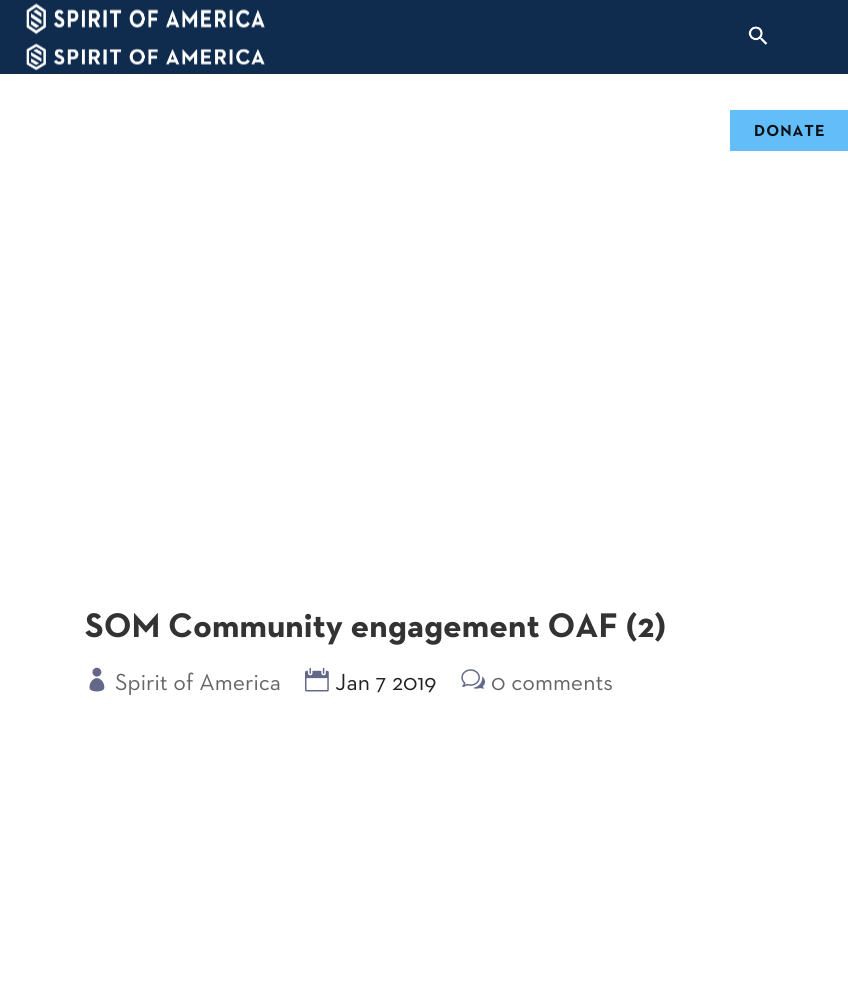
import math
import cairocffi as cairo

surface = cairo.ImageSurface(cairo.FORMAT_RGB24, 848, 998)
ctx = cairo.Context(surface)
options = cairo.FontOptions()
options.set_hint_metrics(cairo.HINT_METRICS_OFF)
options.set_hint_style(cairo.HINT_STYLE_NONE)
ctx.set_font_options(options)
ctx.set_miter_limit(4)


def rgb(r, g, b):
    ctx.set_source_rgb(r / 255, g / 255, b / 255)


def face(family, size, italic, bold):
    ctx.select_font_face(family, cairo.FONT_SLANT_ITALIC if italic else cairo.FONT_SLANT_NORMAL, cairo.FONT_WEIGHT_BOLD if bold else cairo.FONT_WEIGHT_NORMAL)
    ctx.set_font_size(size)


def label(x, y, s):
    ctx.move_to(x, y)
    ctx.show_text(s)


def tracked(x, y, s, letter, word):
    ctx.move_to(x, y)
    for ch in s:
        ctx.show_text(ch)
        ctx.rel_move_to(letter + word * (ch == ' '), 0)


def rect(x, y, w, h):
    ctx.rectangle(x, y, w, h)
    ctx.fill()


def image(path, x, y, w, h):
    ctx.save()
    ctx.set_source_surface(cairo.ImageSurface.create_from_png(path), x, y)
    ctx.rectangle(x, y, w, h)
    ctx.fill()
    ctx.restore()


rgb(255, 255, 255)
ctx.paint()
rgb(15, 43, 77)
rect(0, 0, 848, 74)
image('image0.png', 26, 3, 239, 32)
image('image1.png', 26, 43, 239, 28)
image('image2.png', 748, 26, 20, 19)
rgb(98, 189, 249)
rect(730, 110, 118, 41)
face('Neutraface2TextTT', 16.25, 0, 1)
rgb(9, 17, 22)
tracked(754, 136, 'DONATE', 1, 0)
face('Neutraface2TextTT', 34.8, 0, 1)
rgb(51, 51, 51)
label(85, 637, 'SOM Community engagement OAF (2)')
image('image3.png', 89, 667, 16, 25)
face('Neutraface2TextTT', 23.75, 0, 0)
rgb(102, 102, 102)
label(115, 690, 'Spirit of America')
image('image4.png', 305, 667, 24, 25)
rgb(33, 33, 33)
label(335, 690, 'Jan 7 2019')
image('image5.png', 461, 669, 24, 20)
rgb(102, 102, 102)
label(491, 690, '0 comments')
surface.write_to_png('render.png')
